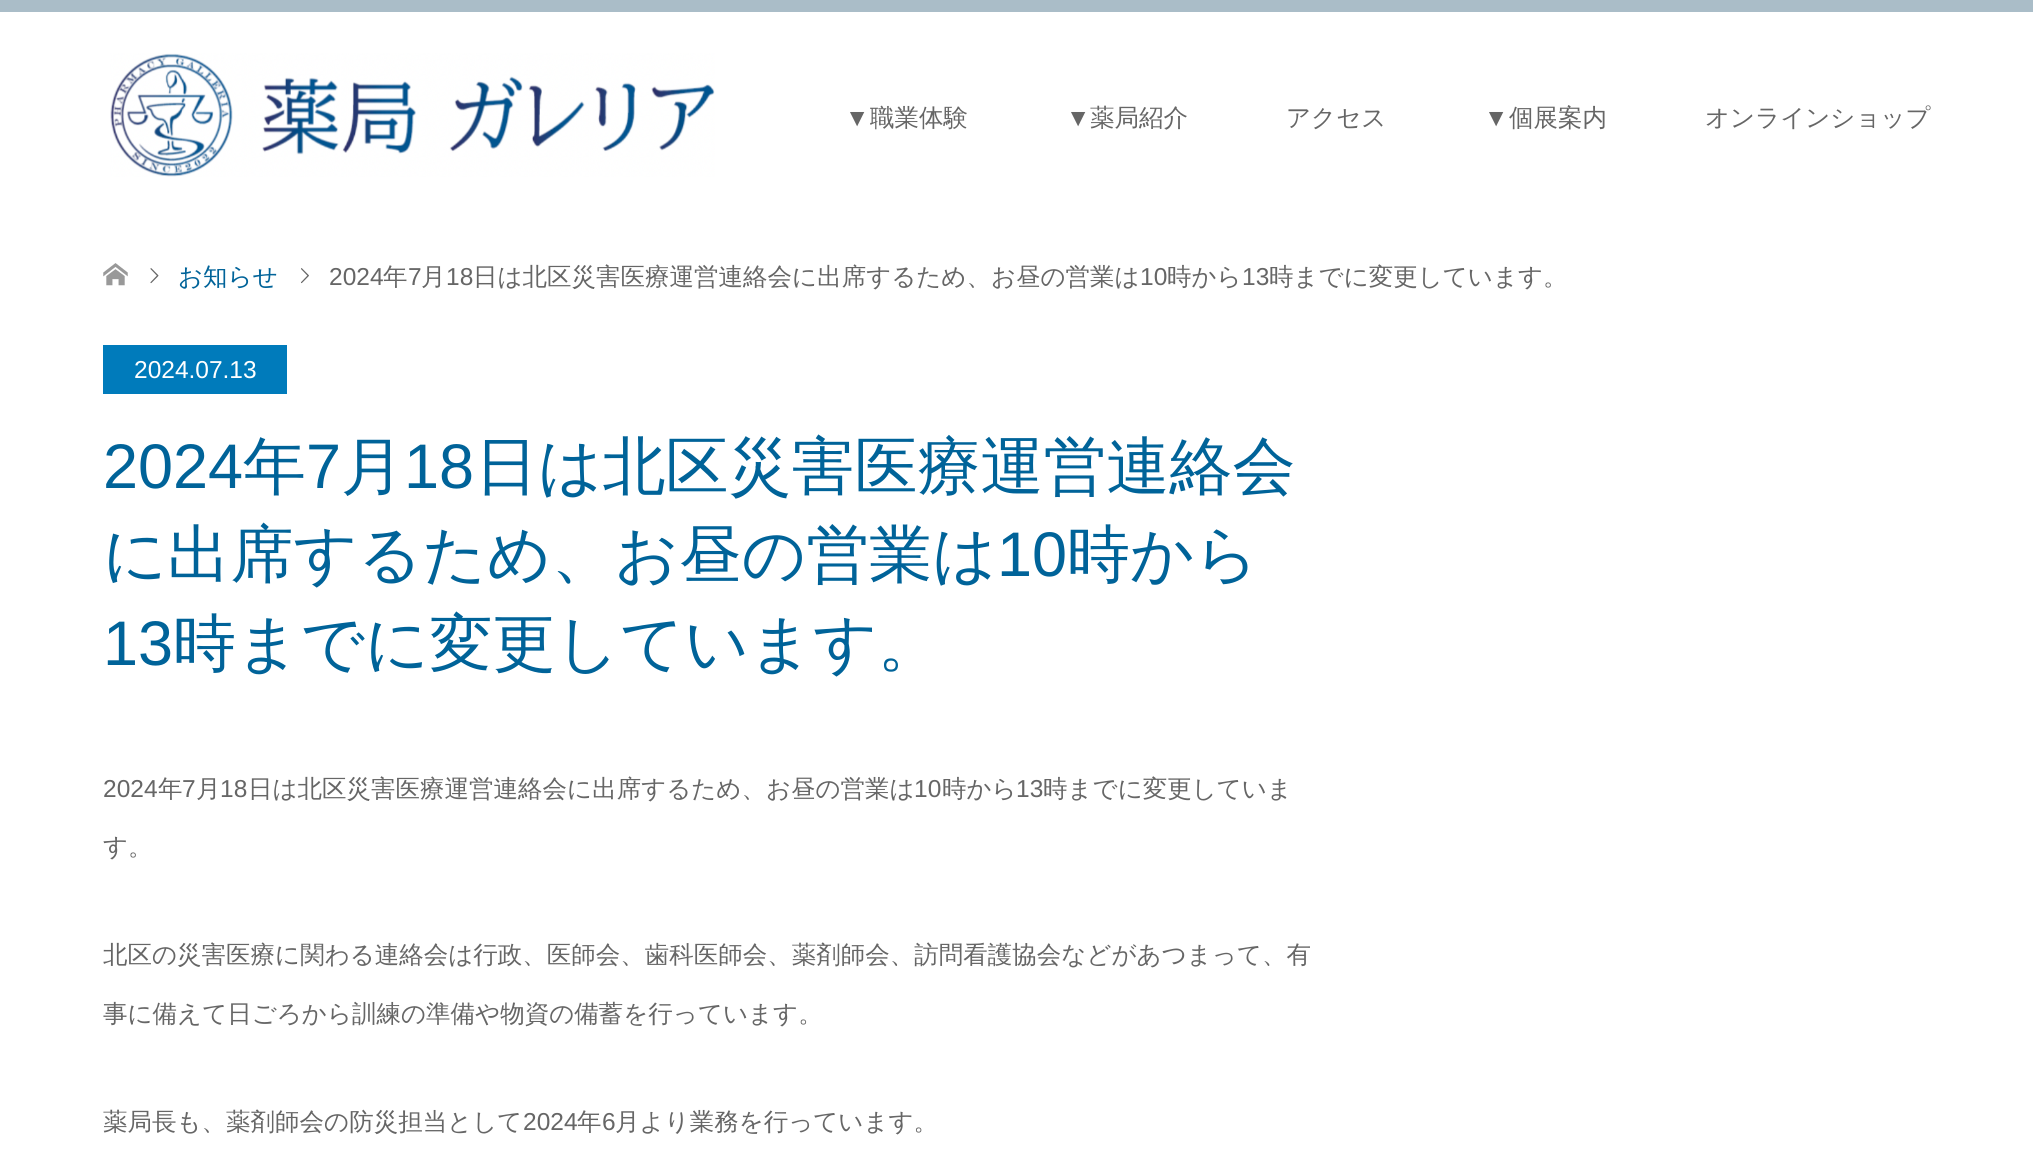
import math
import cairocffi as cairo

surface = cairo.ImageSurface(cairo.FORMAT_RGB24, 2033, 1158)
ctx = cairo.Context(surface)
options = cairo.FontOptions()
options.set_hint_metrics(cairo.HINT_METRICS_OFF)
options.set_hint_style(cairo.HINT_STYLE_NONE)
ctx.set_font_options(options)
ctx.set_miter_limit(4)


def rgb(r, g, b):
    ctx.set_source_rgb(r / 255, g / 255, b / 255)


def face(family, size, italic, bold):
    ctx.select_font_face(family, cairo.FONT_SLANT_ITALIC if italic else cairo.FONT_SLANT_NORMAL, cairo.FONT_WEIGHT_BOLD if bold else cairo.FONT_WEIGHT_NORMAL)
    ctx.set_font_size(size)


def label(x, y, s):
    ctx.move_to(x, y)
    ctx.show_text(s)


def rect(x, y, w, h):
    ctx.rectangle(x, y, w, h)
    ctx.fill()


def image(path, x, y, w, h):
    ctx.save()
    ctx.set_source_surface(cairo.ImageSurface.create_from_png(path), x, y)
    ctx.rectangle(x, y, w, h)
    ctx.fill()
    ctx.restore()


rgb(255, 255, 255)
ctx.paint()
rgb(170, 189, 200)
rect(0, 0, 2033, 12)
image('image0.png', 110, 53, 605, 124)
face('Liberation Sans', 24.5, 0, 0)
rgb(102, 102, 102)
label(845, 126, '▼')
face('WenQuanYi Zen Hei Medium', 24.5, 0, 0)
label(870, 126, '職業体験')
face('Liberation Sans', 24.5, 0, 0)
label(1066, 126, '▼')
face('WenQuanYi Zen Hei Medium', 24.5, 0, 0)
label(1090, 126, '薬局紹介')
label(1286, 126, 'アクセス')
face('Liberation Sans', 24.5, 0, 0)
label(1484, 126, '▼')
face('WenQuanYi Zen Hei Medium', 24.5, 0, 0)
label(1509, 126, '個展案内')
label(1705, 126, 'オンラインショップ')
image('image1.png', 103, 263, 25, 23)
image('image2.png', 150, 268, 9, 16)
rgb(0, 99, 153)
label(178, 285, 'お知らせ')
image('image3.png', 301, 268, 8, 16)
face('Liberation Sans', 24.5, 0, 0)
rgb(102, 102, 102)
label(329, 285, '2024')
face('WenQuanYi Zen Hei Medium', 24.5, 0, 0)
label(383, 285, '年')
face('Liberation Sans', 24.5, 0, 0)
label(408, 285, '7')
face('WenQuanYi Zen Hei Medium', 24.5, 0, 0)
label(421, 285, '月')
face('Liberation Sans', 24.5, 0, 0)
label(446, 285, '18')
face('WenQuanYi Zen Hei Medium', 24.5, 0, 0)
label(473, 285, '日は北区災害医療運営連絡会に出席するため、お昼の営業は')
face('Liberation Sans', 24.5, 0, 0)
label(1140, 285, '10')
face('WenQuanYi Zen Hei Medium', 24.5, 0, 0)
label(1167, 285, '時から')
face('Liberation Sans', 24.5, 0, 0)
label(1242, 285, '13')
face('WenQuanYi Zen Hei Medium', 24.5, 0, 0)
label(1269, 285, '時までに変更しています。')
rgb(0, 123, 187)
rect(103, 345, 184, 49)
face('Liberation Sans', 24.5, 0, 0)
rgb(255, 255, 255)
label(134, 378, '2024.07.13')
face('Liberation Sans', 63, 0, 0)
rgb(0, 99, 153)
label(103, 488, '2024')
face('WenQuanYi Zen Hei Medium', 63, 0, 0)
label(243, 488, '年')
face('Liberation Sans', 63, 0, 0)
label(306, 488, '7')
face('WenQuanYi Zen Hei Medium', 63, 0, 0)
label(341, 488, '月')
face('Liberation Sans', 63, 0, 0)
label(404, 488, '18')
face('WenQuanYi Zen Hei Medium', 63, 0, 0)
label(475, 488, '日は北区災害医療運営連絡会')
label(103, 576, 'に出席するため、お昼の営業は')
face('Liberation Sans', 63, 0, 0)
label(997, 576, '10')
face('WenQuanYi Zen Hei Medium', 63, 0, 0)
label(1067, 576, '時から')
face('Liberation Sans', 63, 0, 0)
label(103, 665, '13')
face('WenQuanYi Zen Hei Medium', 63, 0, 0)
label(173, 665, '時までに変更しています。')
face('Liberation Sans', 24.5, 0, 0)
rgb(102, 102, 102)
label(103, 797, '2024')
face('WenQuanYi Zen Hei Medium', 24.5, 0, 0)
label(158, 797, '年')
face('Liberation Sans', 24.5, 0, 0)
label(182, 797, '7')
face('WenQuanYi Zen Hei Medium', 24.5, 0, 0)
label(196, 797, '月')
face('Liberation Sans', 24.5, 0, 0)
label(220, 797, '18')
face('WenQuanYi Zen Hei Medium', 24.5, 0, 0)
label(248, 797, '日は北区災害医療運営連絡会に出席するため、お昼の営業は')
face('Liberation Sans', 24.5, 0, 0)
label(914, 797, '10')
face('WenQuanYi Zen Hei Medium', 24.5, 0, 0)
label(942, 797, '時から')
face('Liberation Sans', 24.5, 0, 0)
label(1016, 797, '13')
face('WenQuanYi Zen Hei Medium', 24.5, 0, 0)
label(1043, 797, '時までに変更していま')
label(103, 855, 'す。')
label(103, 963, '北区の災害医療に関わる連絡会は行政、医師会、歯科医師会、薬剤師会、訪問看護協会などがあつまって、有')
label(103, 1022, '事に備えて日ごろから訓練の準備や物資の備蓄を行っています。')
label(103, 1130, '薬局長も、薬剤師会の防災担当として')
face('Liberation Sans', 24.5, 0, 0)
label(523, 1130, '2024')
face('WenQuanYi Zen Hei Medium', 24.5, 0, 0)
label(577, 1130, '年')
face('Liberation Sans', 24.5, 0, 0)
label(602, 1130, '6')
face('WenQuanYi Zen Hei Medium', 24.5, 0, 0)
label(615, 1130, '月より業務を行っています。')
surface.write_to_png('render.png')
